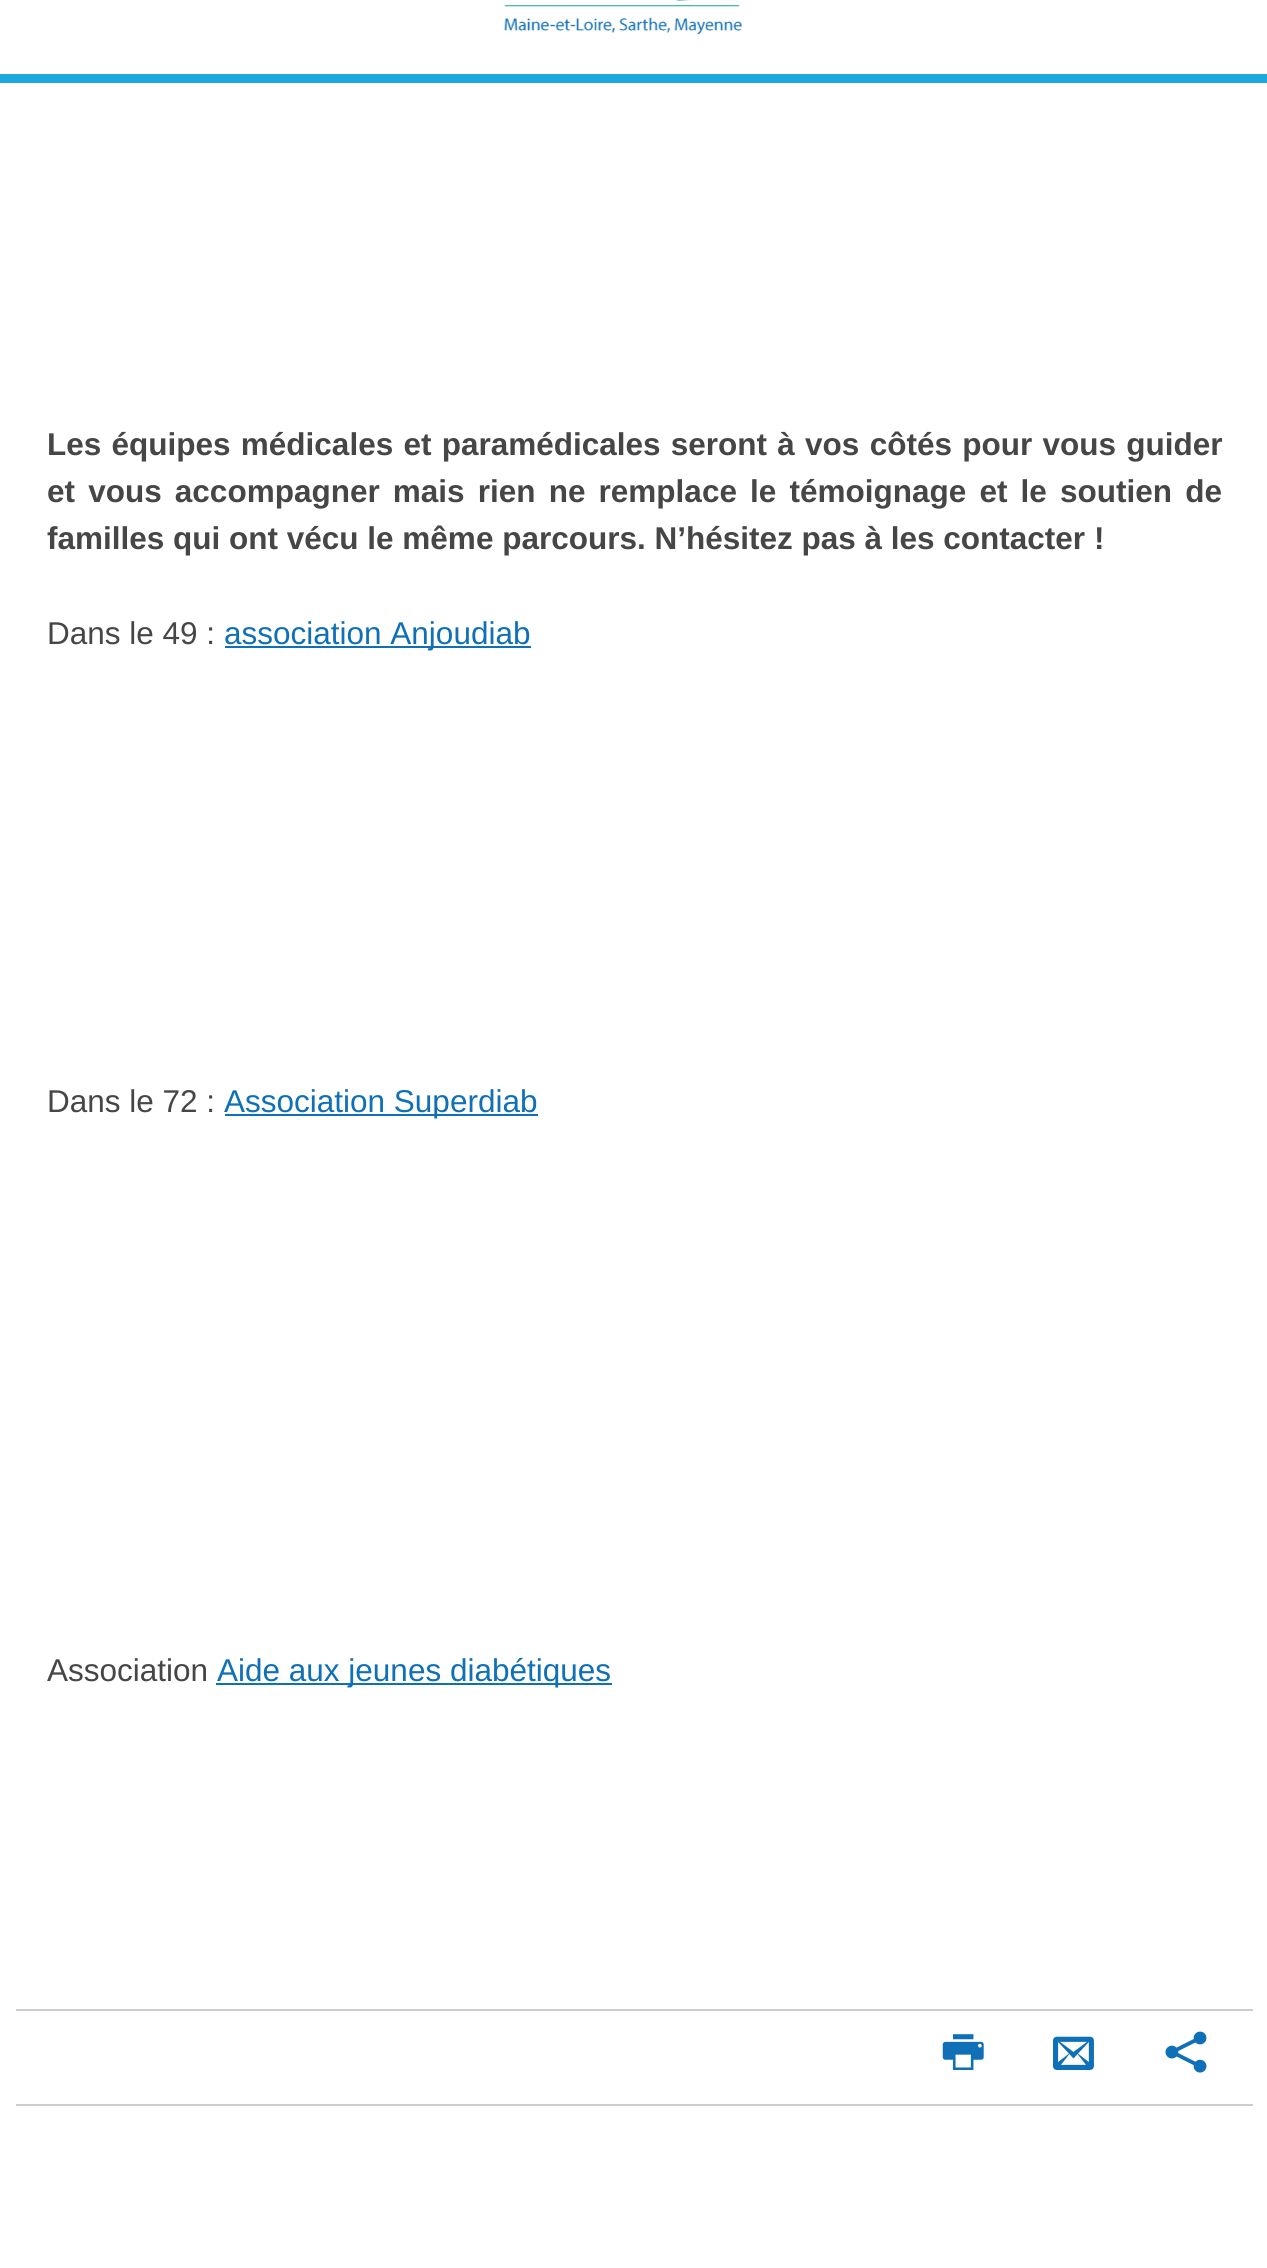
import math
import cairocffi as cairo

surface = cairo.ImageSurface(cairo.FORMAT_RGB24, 1267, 2268)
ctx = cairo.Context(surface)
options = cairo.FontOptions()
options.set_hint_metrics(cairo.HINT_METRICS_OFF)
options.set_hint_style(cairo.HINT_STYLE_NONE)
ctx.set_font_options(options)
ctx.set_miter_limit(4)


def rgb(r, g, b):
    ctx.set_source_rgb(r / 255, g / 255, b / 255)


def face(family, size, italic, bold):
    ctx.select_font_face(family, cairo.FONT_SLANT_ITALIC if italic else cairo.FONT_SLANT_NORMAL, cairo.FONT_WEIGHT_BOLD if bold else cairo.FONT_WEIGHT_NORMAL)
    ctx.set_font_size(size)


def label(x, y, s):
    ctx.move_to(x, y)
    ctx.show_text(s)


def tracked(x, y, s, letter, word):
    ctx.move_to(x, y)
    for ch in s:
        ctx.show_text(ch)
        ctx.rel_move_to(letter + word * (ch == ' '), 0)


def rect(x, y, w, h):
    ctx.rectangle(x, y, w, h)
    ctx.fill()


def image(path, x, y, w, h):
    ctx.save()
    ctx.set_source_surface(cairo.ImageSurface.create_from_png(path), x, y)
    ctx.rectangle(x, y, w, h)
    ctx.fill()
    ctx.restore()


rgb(255, 255, 255)
ctx.paint()
rgb(27, 170, 223)
rect(0, 74, 1267, 9)
image('image0.png', 504, 0, 238, 35)
face('Liberation Sans', 31.5, 0, 1)
rgb(70, 70, 70)
tracked(47, 455, 'Les équipes médicales et paramédicales seront à vos côtés pour vous guider', 0, 1.5)
tracked(47, 502, 'et vous accompagner mais rien ne remplace le témoignage et le soutien de', 0, 4.4)
label(47, 549, 'familles qui ont vécu le même parcours. N’hésitez pas à les contacter !')
face('Liberation Sans', 31.5, 0, 0)
label(47, 644, 'Dans le 49 :')
rgb(15, 112, 183)
rect(225, 646, 306, 2)
label(224, 644, 'association Anjoudiab')
rgb(70, 70, 70)
label(47, 1112, 'Dans le 72 :')
rgb(15, 112, 183)
rect(225, 1114, 313, 2)
label(224, 1112, 'Association Superdiab')
rgb(70, 70, 70)
label(47, 1681, 'Association')
rgb(15, 112, 183)
rect(216, 1683, 396, 2)
label(217, 1681, 'Aide aux jeunes diabétiques')
rgb(205, 205, 205)
rect(16, 2009, 1237, 2)
rect(16, 2104, 1237, 2)
image('image1.png', 942, 2034, 42, 36)
image('image2.png', 1053, 2036, 41, 34)
image('image3.png', 1165, 2031, 42, 42)
surface.write_to_png('render.png')
